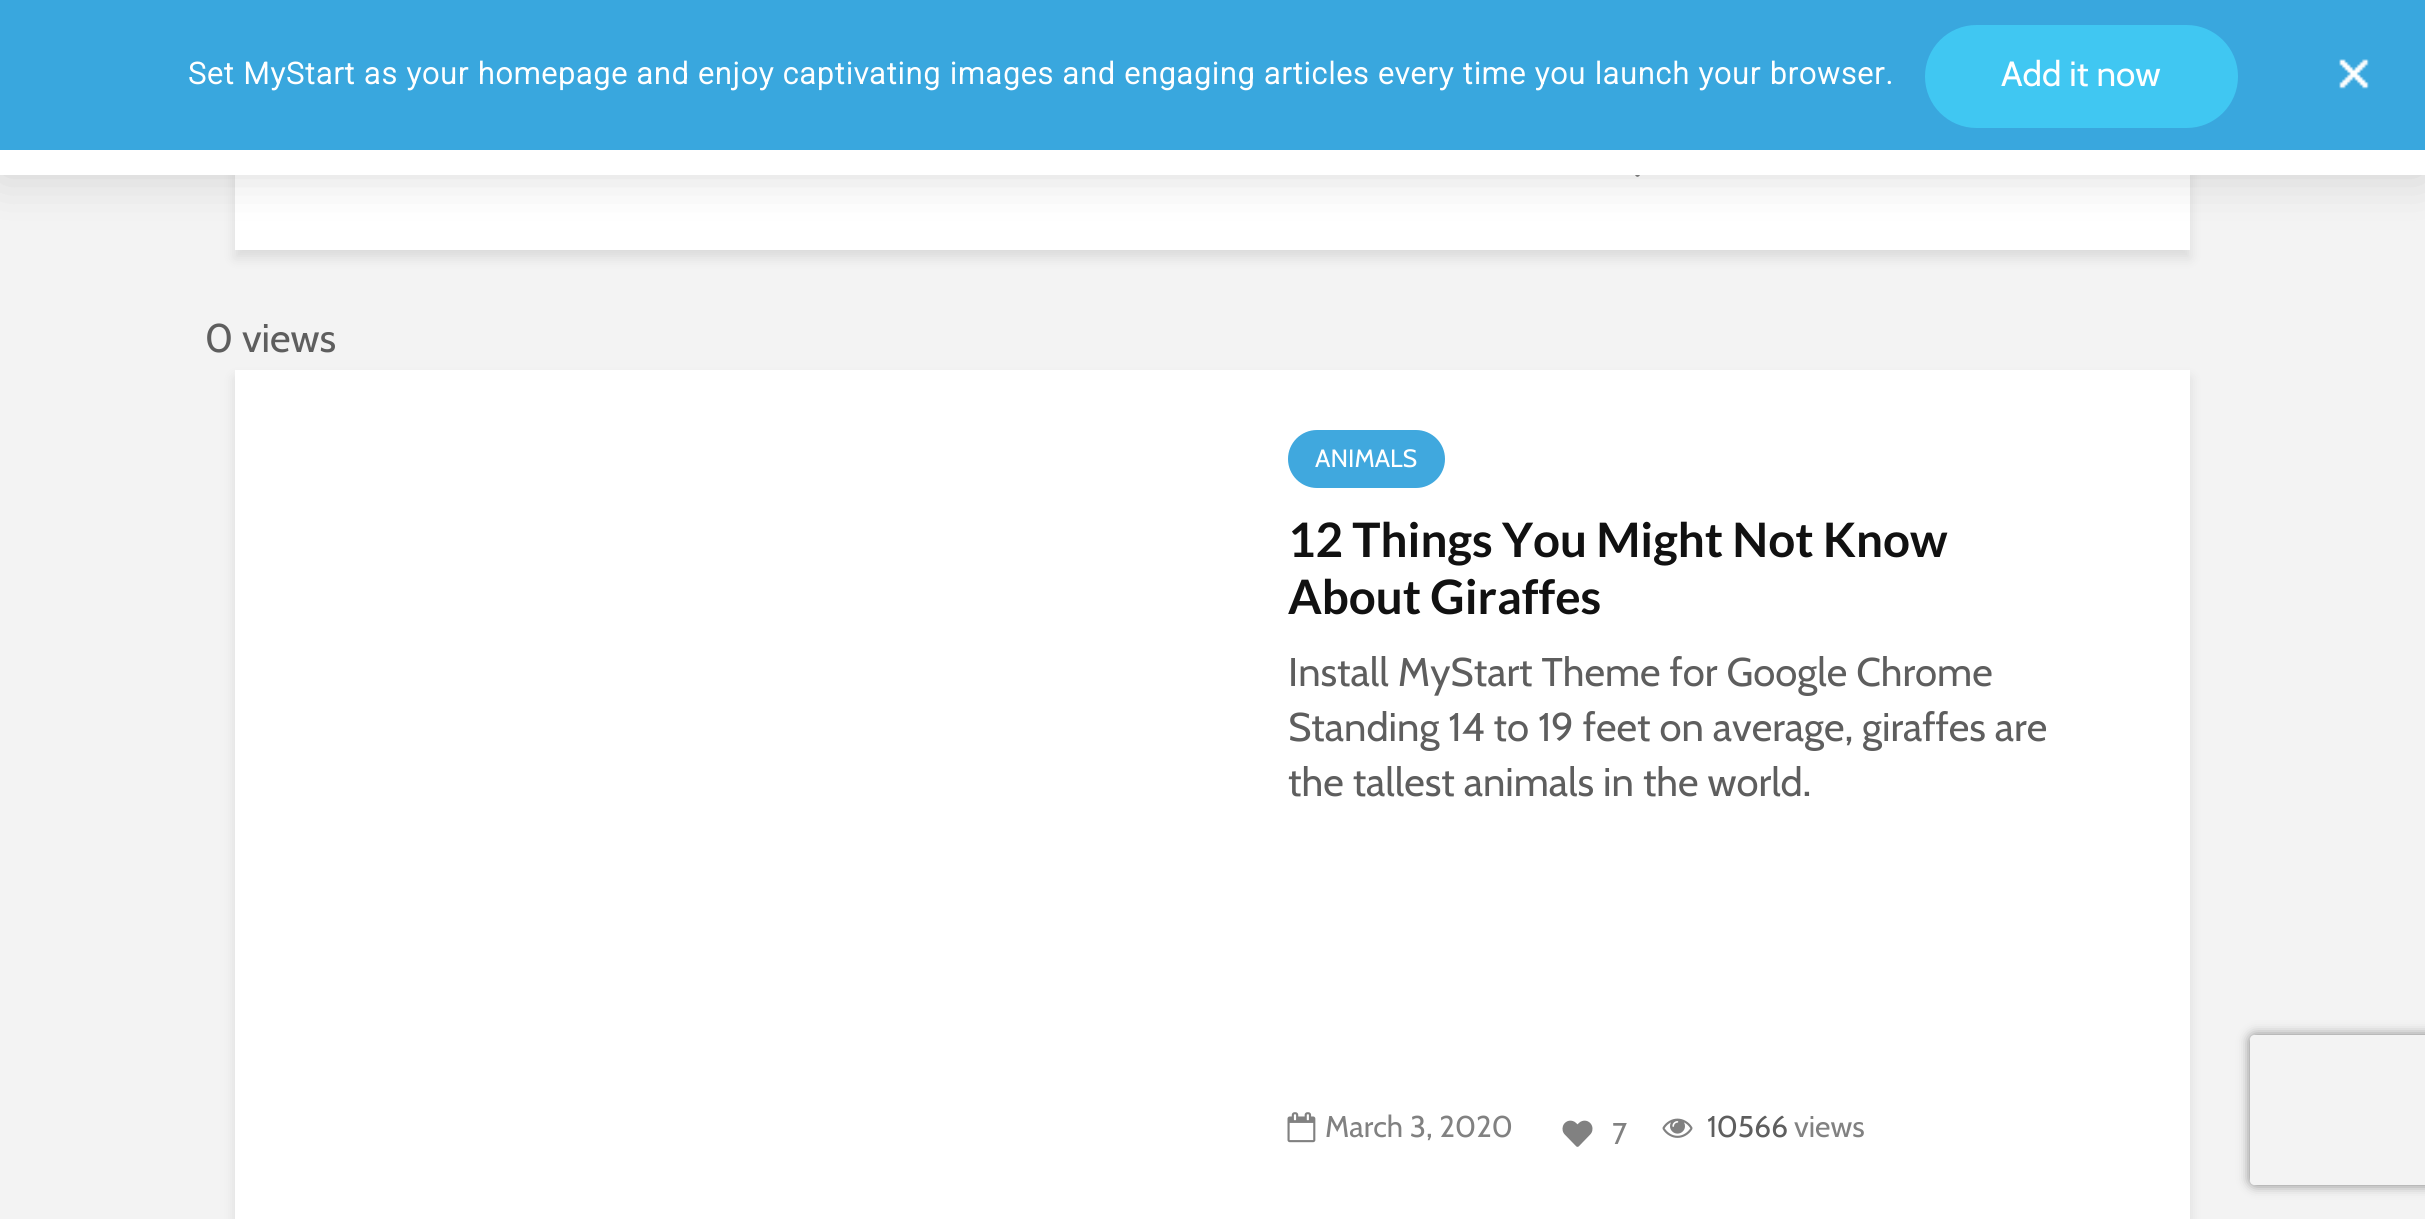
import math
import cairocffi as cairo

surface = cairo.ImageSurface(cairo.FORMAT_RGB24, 2425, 1219)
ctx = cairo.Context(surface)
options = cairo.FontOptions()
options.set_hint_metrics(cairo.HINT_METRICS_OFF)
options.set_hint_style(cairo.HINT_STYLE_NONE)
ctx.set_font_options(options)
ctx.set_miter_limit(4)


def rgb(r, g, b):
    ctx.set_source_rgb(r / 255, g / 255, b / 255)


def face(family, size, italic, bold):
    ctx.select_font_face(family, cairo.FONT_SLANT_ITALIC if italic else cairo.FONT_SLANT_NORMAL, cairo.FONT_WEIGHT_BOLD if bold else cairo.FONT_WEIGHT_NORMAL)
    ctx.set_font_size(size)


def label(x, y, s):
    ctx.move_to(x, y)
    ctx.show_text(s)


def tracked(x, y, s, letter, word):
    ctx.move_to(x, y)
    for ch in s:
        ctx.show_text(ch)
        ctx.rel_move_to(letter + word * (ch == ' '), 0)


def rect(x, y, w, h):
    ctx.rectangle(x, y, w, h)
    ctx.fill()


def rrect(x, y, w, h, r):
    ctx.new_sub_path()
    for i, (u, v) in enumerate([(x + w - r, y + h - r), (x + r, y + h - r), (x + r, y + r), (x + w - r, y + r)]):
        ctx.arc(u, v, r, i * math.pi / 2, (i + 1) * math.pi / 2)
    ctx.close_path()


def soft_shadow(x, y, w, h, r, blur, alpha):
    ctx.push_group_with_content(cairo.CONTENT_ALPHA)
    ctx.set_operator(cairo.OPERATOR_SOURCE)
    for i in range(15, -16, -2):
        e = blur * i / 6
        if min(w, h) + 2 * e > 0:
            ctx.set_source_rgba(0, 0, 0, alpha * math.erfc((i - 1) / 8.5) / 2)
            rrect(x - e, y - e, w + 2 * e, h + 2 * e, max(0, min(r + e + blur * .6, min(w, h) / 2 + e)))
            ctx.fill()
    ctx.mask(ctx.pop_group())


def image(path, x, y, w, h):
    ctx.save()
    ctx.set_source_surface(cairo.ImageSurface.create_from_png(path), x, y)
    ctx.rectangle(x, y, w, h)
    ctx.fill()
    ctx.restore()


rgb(243, 243, 243)
ctx.paint()
rgb(0, 1, 1)
soft_shadow(235, -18, 1955, 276, 0, 6, 0.1)
rgb(255, 255, 255)
rect(235, 175, 1955, 75)
image('image1.png', 1635, 175, 5, 2)
rgb(0, 0, 0)
soft_shadow(0, 0, 2425, 175, 0, 25, 0.15)
rgb(255, 255, 255)
rect(0, 150, 2425, 25)
rgb(57, 167, 222)
rect(0, 0, 2425, 150)
face('Roboto', 30, 0, 1)
rgb(255, 255, 255)
tracked(188, 84, 'Set MyStart as your homepage and enjoy captivating images and engaging articles every time you launch your browser.', 1.25, 0)
rgb(64, 199, 242)
rrect(1925, 25, 313, 103, 51.5)
ctx.fill()
face('Cabin', 35, 0, 0)
rgb(255, 255, 255)
label(2001, 86, 'Add it now')
image('image0.png', 2339, 59, 30, 30)
face('Cabin', 40, 0, 0)
rgb(94, 94, 94)
label(205, 352, '0 views')
rgb(0, 1, 1)
soft_shadow(235, 378, 1955, 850, 0, 6, 0.1)
rgb(255, 255, 255)
rect(235, 370, 1955, 849)
rgb(64, 168, 222)
rrect(1288, 430, 157, 58, 29)
ctx.fill()
face('Cabin', 25, 0, 0)
rgb(255, 255, 255)
label(1315, 467, 'ANIMALS')
face('Lato', 47.5, 0, 1)
rgb(17, 17, 17)
label(1288, 557, '12 Things You Might Not Know')
label(1288, 614, 'About Giraffes')
face('Cabin', 40, 0, 0)
rgb(94, 94, 94)
label(1288, 686, 'Install MyStart Theme for Google Chrome')
label(1288, 741, 'Standing 14 to 19 feet on average, giraffes are')
label(1288, 796, 'the tallest animals in the world.')
image('image2.png', 1287, 1112, 29, 31)
face('Cabin', 30, 0, 0)
rgb(129, 129, 129)
label(1325, 1137, 'March 3, 2020')
image('image3.png', 1562, 1120, 31, 27)
label(1612, 1144, '7')
image('image4.png', 1662, 1118, 31, 20)
rgb(94, 94, 94)
label(1707, 1137, '10566')
rgb(129, 129, 129)
label(1794, 1137, 'views')
ctx.save()
ctx.set_fill_rule(cairo.FILL_RULE_EVEN_ODD)
ctx.new_path()
ctx.move_to(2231, 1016)
ctx.line_to(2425, 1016)
ctx.line_to(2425, 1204)
ctx.line_to(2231, 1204)
ctx.close_path()
ctx.move_to(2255, 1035)
ctx.line_to(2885, 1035)
ctx.curve_to(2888, 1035, 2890, 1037, 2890, 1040)
ctx.line_to(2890, 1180)
ctx.curve_to(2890, 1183, 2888, 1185, 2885, 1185)
ctx.line_to(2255, 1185)
ctx.curve_to(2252, 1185, 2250, 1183, 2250, 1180)
ctx.line_to(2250, 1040)
ctx.curve_to(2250, 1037, 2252, 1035, 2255, 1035)
ctx.close_path()
ctx.clip()
rgb(128, 128, 128)
soft_shadow(2250, 1035, 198, 150, 5, 6, 1)
ctx.restore()
surface.write_to_png('render.png')
